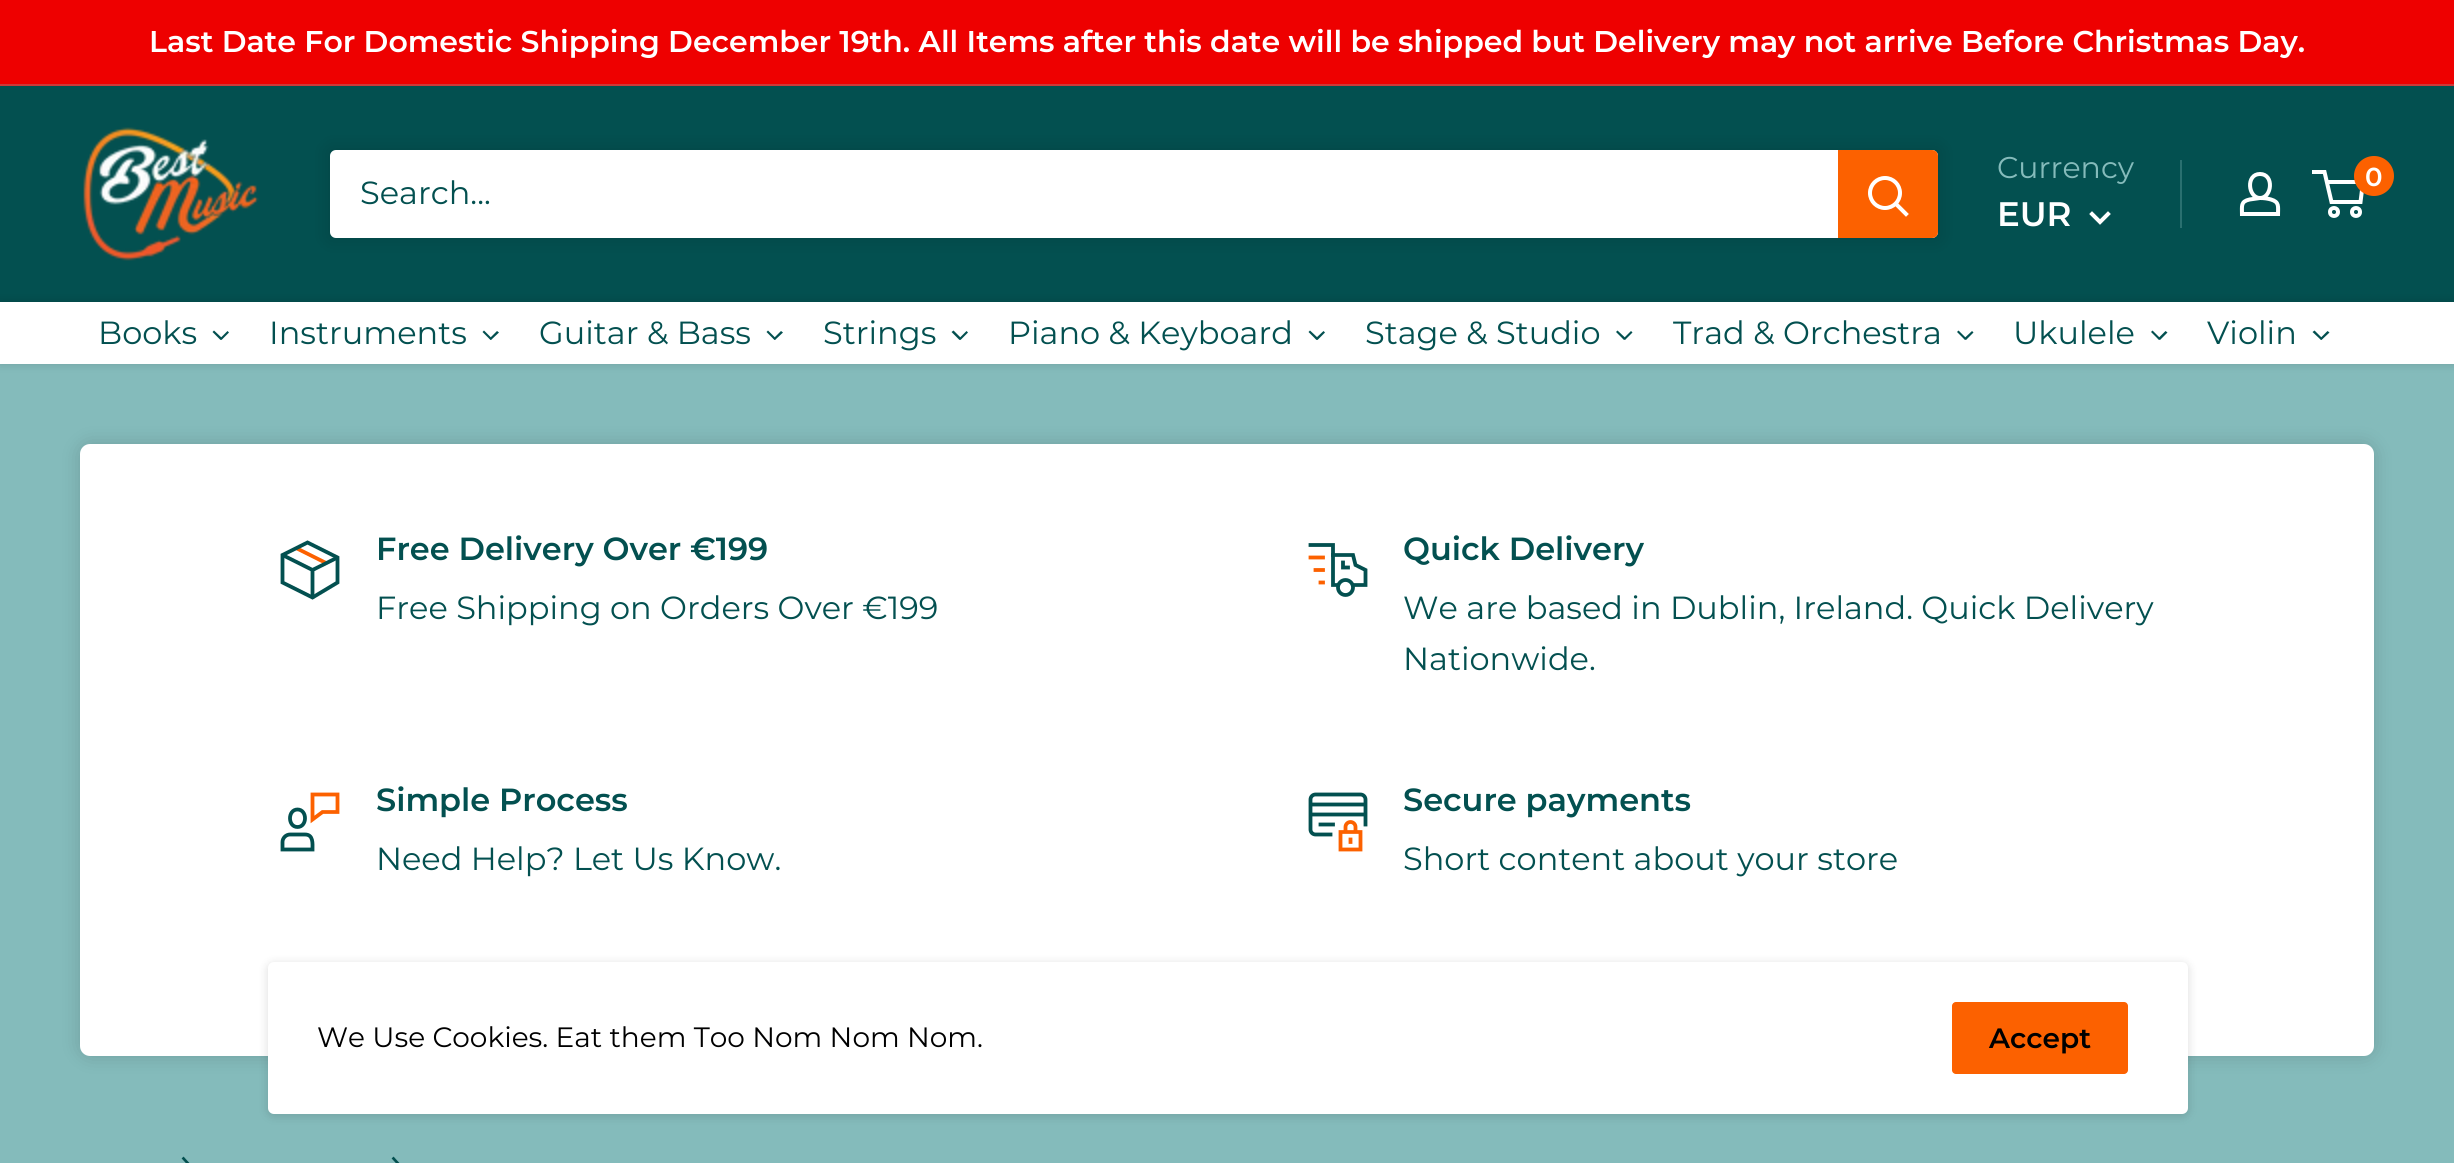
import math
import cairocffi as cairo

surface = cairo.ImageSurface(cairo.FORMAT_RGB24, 2454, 1163)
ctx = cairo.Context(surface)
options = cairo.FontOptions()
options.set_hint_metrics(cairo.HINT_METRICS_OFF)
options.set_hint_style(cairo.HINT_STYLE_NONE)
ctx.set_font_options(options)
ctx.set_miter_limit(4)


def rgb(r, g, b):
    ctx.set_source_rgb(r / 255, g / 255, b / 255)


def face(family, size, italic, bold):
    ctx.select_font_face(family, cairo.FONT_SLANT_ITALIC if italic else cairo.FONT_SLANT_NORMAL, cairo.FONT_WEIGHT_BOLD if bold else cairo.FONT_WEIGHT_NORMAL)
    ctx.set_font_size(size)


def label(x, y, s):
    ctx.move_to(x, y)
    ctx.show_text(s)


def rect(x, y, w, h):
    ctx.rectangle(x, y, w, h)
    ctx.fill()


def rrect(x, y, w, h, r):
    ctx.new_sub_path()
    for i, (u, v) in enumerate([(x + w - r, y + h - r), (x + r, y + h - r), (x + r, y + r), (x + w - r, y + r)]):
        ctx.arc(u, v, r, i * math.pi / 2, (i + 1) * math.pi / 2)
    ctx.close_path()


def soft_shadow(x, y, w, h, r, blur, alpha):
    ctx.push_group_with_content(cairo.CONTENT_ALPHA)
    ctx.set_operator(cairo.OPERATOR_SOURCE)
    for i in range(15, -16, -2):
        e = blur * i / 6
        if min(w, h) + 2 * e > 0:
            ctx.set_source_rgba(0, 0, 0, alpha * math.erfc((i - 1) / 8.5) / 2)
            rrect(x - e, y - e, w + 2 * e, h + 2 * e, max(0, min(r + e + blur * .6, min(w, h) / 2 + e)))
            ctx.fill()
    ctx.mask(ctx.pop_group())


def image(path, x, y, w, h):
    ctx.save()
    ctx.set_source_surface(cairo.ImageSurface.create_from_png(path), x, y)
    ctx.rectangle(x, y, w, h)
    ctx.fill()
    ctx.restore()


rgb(132, 187, 187)
ctx.paint()
rgb(238, 0, 0)
rect(0, 0, 2454, 84)
rgb(207, 56, 56)
rect(0, 84, 2454, 2)
face('Montserrat SemiBold', 30, 0, 0)
rgb(255, 255, 255)
label(149, 52, 'Last Date For Domestic Shipping December 19th. All Items after this date will be shipped but Delivery may not arrive Before Christmas Day.')
rgb(3, 80, 80)
rect(0, 86, 2454, 216)
image('image0.png', 83, 127, 176, 134)
rgb(0, 0, 0)
soft_shadow(330, 150, 1608, 88, 0, 10, 0.15)
rgb(255, 255, 255)
rrect(330, 150, 1608, 88, 6)
ctx.fill()
face('Montserrat Thin', 32, 0, 0)
rgb(3, 80, 80)
label(360, 204, 'Search...')
rgb(252, 97, 0)
ctx.new_path()
ctx.move_to(1838, 150)
ctx.line_to(1932, 150)
ctx.curve_to(1935.5, 150, 1938, 152.5, 1938, 156)
ctx.line_to(1938, 232)
ctx.curve_to(1938, 235.5, 1935.5, 238, 1932, 238)
ctx.line_to(1838, 238)
ctx.close_path()
ctx.fill()
ctx.new_path()
ctx.move_to(1906, 214)
ctx.line_to(1896, 204)
rgb(255, 255, 255)
ctx.set_line_width(4)
ctx.set_line_cap(cairo.LINE_CAP_SQUARE)
ctx.stroke()
ctx.arc(1885, 193, 15, 0, 2 * math.pi)
ctx.set_line_cap(cairo.LINE_CAP_BUTT)
ctx.stroke()
face('Montserrat Thin', 30, 0, 0)
rgb(133, 187, 187)
label(1997, 178, 'Currency')
rgb(42, 112, 112)
rect(2180, 160, 2, 68)
face('Montserrat SemiBold', 34, 0, 0)
rgb(255, 255, 255)
label(1997, 226, 'EUR')
ctx.new_path()
ctx.move_to(2108, 214)
ctx.line_to(2100, 222)
ctx.line_to(2092, 214)
ctx.set_line_cap(cairo.LINE_CAP_SQUARE)
ctx.stroke()
ctx.new_path()
ctx.move_to(2260, 198)
ctx.curve_to(2264, 198, 2267.5, 198.5, 2271, 199.5)
ctx.curve_to(2279.5, 202, 2278, 206.5, 2278, 214)
ctx.line_to(2242, 214)
ctx.curve_to(2242, 206, 2240.5, 201.5, 2249.5, 199.5)
ctx.close_path()
ctx.move_to(2260, 198)
ctx.curve_to(2248, 198, 2245.5, 174, 2260, 174)
ctx.curve_to(2274.5, 174, 2272, 198, 2260, 198)
ctx.close_path()
ctx.set_line_cap(cairo.LINE_CAP_BUTT)
ctx.stroke()
ctx.arc(2334, 212, 4, 0, 2 * math.pi)
ctx.stroke()
ctx.arc(2356, 212, 4, 0, 2 * math.pi)
ctx.stroke()
ctx.new_path()
ctx.move_to(2326.5, 182)
ctx.line_to(2363, 182)
ctx.line_to(2360.5, 202)
ctx.line_to(2331.5, 202)
ctx.line_to(2324.5, 172)
ctx.line_to(2312, 172)
ctx.stroke()
rgb(252, 97, 0)
ctx.arc(2374, 176, 20, 0, 2 * math.pi)
ctx.fill()
face('Montserrat SemiBold', 26, 0, 0)
rgb(255, 255, 255)
label(2365, 186, '0')
rgb(0, 0, 0)
soft_shadow(0, 302, 2454, 62, 0, 5, 0.15)
rgb(255, 255, 255)
rect(0, 302, 2454, 62)
face('Montserrat Thin', 32, 0, 0)
rgb(3, 80, 80)
label(98, 344, 'Books')
ctx.new_path()
ctx.move_to(227.5, 331)
ctx.line_to(229, 332.5)
ctx.line_to(221.5, 340)
ctx.line_to(220, 338.5)
ctx.close_path()
ctx.fill()
ctx.new_path()
ctx.move_to(214, 330.5)
ctx.line_to(222.5, 338.5)
ctx.line_to(220.5, 340)
ctx.line_to(212.5, 332)
ctx.close_path()
ctx.fill()
label(269, 344, 'Instruments')
ctx.new_path()
ctx.move_to(497, 331)
ctx.line_to(499, 332.5)
ctx.line_to(491, 340)
ctx.line_to(489.5, 338.5)
ctx.close_path()
ctx.fill()
ctx.new_path()
ctx.move_to(484, 330.5)
ctx.line_to(492, 338.5)
ctx.line_to(490.5, 340)
ctx.line_to(482.5, 332)
ctx.close_path()
ctx.fill()
label(539, 344, 'Guitar & Bass')
ctx.new_path()
ctx.move_to(781, 331)
ctx.line_to(783, 332.5)
ctx.line_to(775, 340)
ctx.line_to(773.5, 338.5)
ctx.close_path()
ctx.fill()
ctx.new_path()
ctx.move_to(768, 330.5)
ctx.line_to(776, 338.5)
ctx.line_to(774.5, 340)
ctx.line_to(766.5, 332)
ctx.close_path()
ctx.fill()
label(823, 344, 'Strings')
ctx.new_path()
ctx.move_to(966.5, 331)
ctx.line_to(968, 332.5)
ctx.line_to(960.5, 340)
ctx.line_to(959, 338.5)
ctx.close_path()
ctx.fill()
ctx.new_path()
ctx.move_to(953.5, 330.5)
ctx.line_to(961.5, 338.5)
ctx.line_to(959.5, 340)
ctx.line_to(951.5, 332)
ctx.close_path()
ctx.fill()
label(1008, 344, 'Piano & Keyboard')
ctx.new_path()
ctx.move_to(1323.5, 331)
ctx.line_to(1325, 332.5)
ctx.line_to(1317.5, 340)
ctx.line_to(1315.5, 338.5)
ctx.close_path()
ctx.fill()
ctx.new_path()
ctx.move_to(1310, 330.5)
ctx.line_to(1318.5, 338.5)
ctx.line_to(1316.5, 340)
ctx.line_to(1308.5, 332)
ctx.close_path()
ctx.fill()
label(1365, 344, 'Stage & Studio')
ctx.new_path()
ctx.move_to(1631, 331)
ctx.line_to(1632.5, 332.5)
ctx.line_to(1625, 340)
ctx.line_to(1623.5, 338.5)
ctx.close_path()
ctx.fill()
ctx.new_path()
ctx.move_to(1617.5, 330.5)
ctx.line_to(1626, 338.5)
ctx.line_to(1624, 340)
ctx.line_to(1616, 332)
ctx.close_path()
ctx.fill()
label(1673, 344, 'Trad & Orchestra')
ctx.new_path()
ctx.move_to(1972, 331)
ctx.line_to(1973.5, 332.5)
ctx.line_to(1966, 340)
ctx.line_to(1964, 338.5)
ctx.close_path()
ctx.fill()
ctx.new_path()
ctx.move_to(1958.5, 330.5)
ctx.line_to(1966.5, 338.5)
ctx.line_to(1965, 340)
ctx.line_to(1957, 332)
ctx.close_path()
ctx.fill()
label(2013, 344, 'Ukulele')
ctx.new_path()
ctx.move_to(2165.5, 331)
ctx.line_to(2167.5, 332.5)
ctx.line_to(2160, 340)
ctx.line_to(2158, 338.5)
ctx.close_path()
ctx.fill()
ctx.new_path()
ctx.move_to(2152.5, 330.5)
ctx.line_to(2160.5, 338.5)
ctx.line_to(2159, 340)
ctx.line_to(2151, 332)
ctx.close_path()
ctx.fill()
label(2207, 344, 'Violin')
ctx.new_path()
ctx.move_to(2327.5, 331)
ctx.line_to(2329.5, 332.5)
ctx.line_to(2321.5, 340)
ctx.line_to(2320, 338.5)
ctx.close_path()
ctx.fill()
ctx.new_path()
ctx.move_to(2314.5, 330.5)
ctx.line_to(2322.5, 338.5)
ctx.line_to(2321, 340)
ctx.line_to(2312.5, 332)
ctx.close_path()
ctx.fill()
rgb(0, 0, 0)
soft_shadow(80, 444, 2294, 612, 10, 10, 0.15)
rgb(255, 255, 255)
rrect(80, 444, 2294, 612, 10)
ctx.fill()
ctx.new_path()
ctx.move_to(296, 548)
ctx.line_to(326, 563)
rgb(252, 97, 0)
ctx.set_line_width(3.8)
ctx.stroke()
ctx.new_path()
ctx.move_to(337.5, 557.5)
ctx.line_to(312.5, 570)
ctx.line_to(282.5, 555)
ctx.move_to(312.5, 570)
ctx.line_to(312.5, 597.5)
rgb(3, 80, 80)
ctx.stroke()
ctx.new_path()
ctx.move_to(337.5, 557.5)
ctx.line_to(337.5, 582.5)
ctx.line_to(312.5, 597.5)
ctx.line_to(282.5, 582.5)
ctx.line_to(282.5, 555)
ctx.line_to(307.5, 542.5)
ctx.close_path()
ctx.set_line_cap(cairo.LINE_CAP_SQUARE)
ctx.stroke()
face('Montserrat SemiBold', 32, 0, 0)
label(376, 560, 'Free Delivery Over €199')
face('Montserrat Thin', 32, 0, 0)
label(376, 619, 'Free Shipping on Orders Over €199')
image('image1.png', 1308, 543, 60, 54)
face('Montserrat SemiBold', 32, 0, 0)
label(1403, 560, 'Quick Delivery')
face('Montserrat Thin', 32, 0, 0)
label(1403, 619, 'We are based in Dublin, Ireland. Quick Delivery')
label(1403, 670, 'Nationwide.')
ctx.new_path()
ctx.move_to(305, 834.5)
ctx.line_to(290, 834.5)
ctx.curve_to(286, 834.5, 282.5, 838, 282.5, 842)
ctx.line_to(282.5, 849.5)
ctx.line_to(312.5, 849.5)
ctx.curve_to(312.5, 843.5, 313.5, 834.5, 305, 834.5)
ctx.close_path()
ctx.move_to(297.5, 827)
ctx.curve_to(287.5, 827, 287.5, 809.5, 297.5, 809.5)
ctx.curve_to(307.5, 809.5, 307.5, 827, 297.5, 827)
ctx.close_path()
ctx.stroke()
ctx.new_path()
ctx.move_to(312.5, 794.5)
ctx.line_to(312.5, 819.5)
ctx.line_to(322.5, 812)
ctx.line_to(337.5, 812)
ctx.line_to(337.5, 794.5)
ctx.close_path()
rgb(252, 97, 0)
ctx.stroke()
face('Montserrat SemiBold', 32, 0, 0)
rgb(3, 80, 80)
label(376, 811, 'Simple Process')
face('Montserrat Thin', 32, 0, 0)
label(376, 870, 'Need Help? Let Us Know.')
image('image2.png', 1308, 792, 60, 60)
face('Montserrat SemiBold', 32, 0, 0)
label(1403, 811, 'Secure payments')
face('Montserrat Thin', 32, 0, 0)
label(1403, 870, 'Short content about your store')
rgb(0, 0, 0)
soft_shadow(266, 962, 1924, 156, 8, 4, 0.1)
rgb(255, 255, 255)
rrect(268, 962, 1920, 152, 6)
ctx.fill()
face('Montserrat Thin', 28, 0, 0)
rgb(0, 0, 0)
label(317, 1047, 'We Use Cookies. Eat them Too Nom Nom Nom.')
rgb(252, 97, 0)
rrect(1952, 1002, 176, 72, 4)
ctx.fill()
face('Montserrat SemiBold', 28, 0, 0)
rgb(0, 0, 0)
label(1989, 1048, 'Accept')
ctx.new_path()
ctx.move_to(183.5, 1158.5)
ctx.line_to(188.5, 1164)
ctx.line_to(183.5, 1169.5)
rgb(3, 80, 80)
ctx.set_line_width(2.7)
ctx.stroke()
ctx.new_path()
ctx.move_to(393.5, 1158.5)
ctx.line_to(398.5, 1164)
ctx.line_to(393.5, 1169.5)
ctx.stroke()
surface.write_to_png('render.png')
